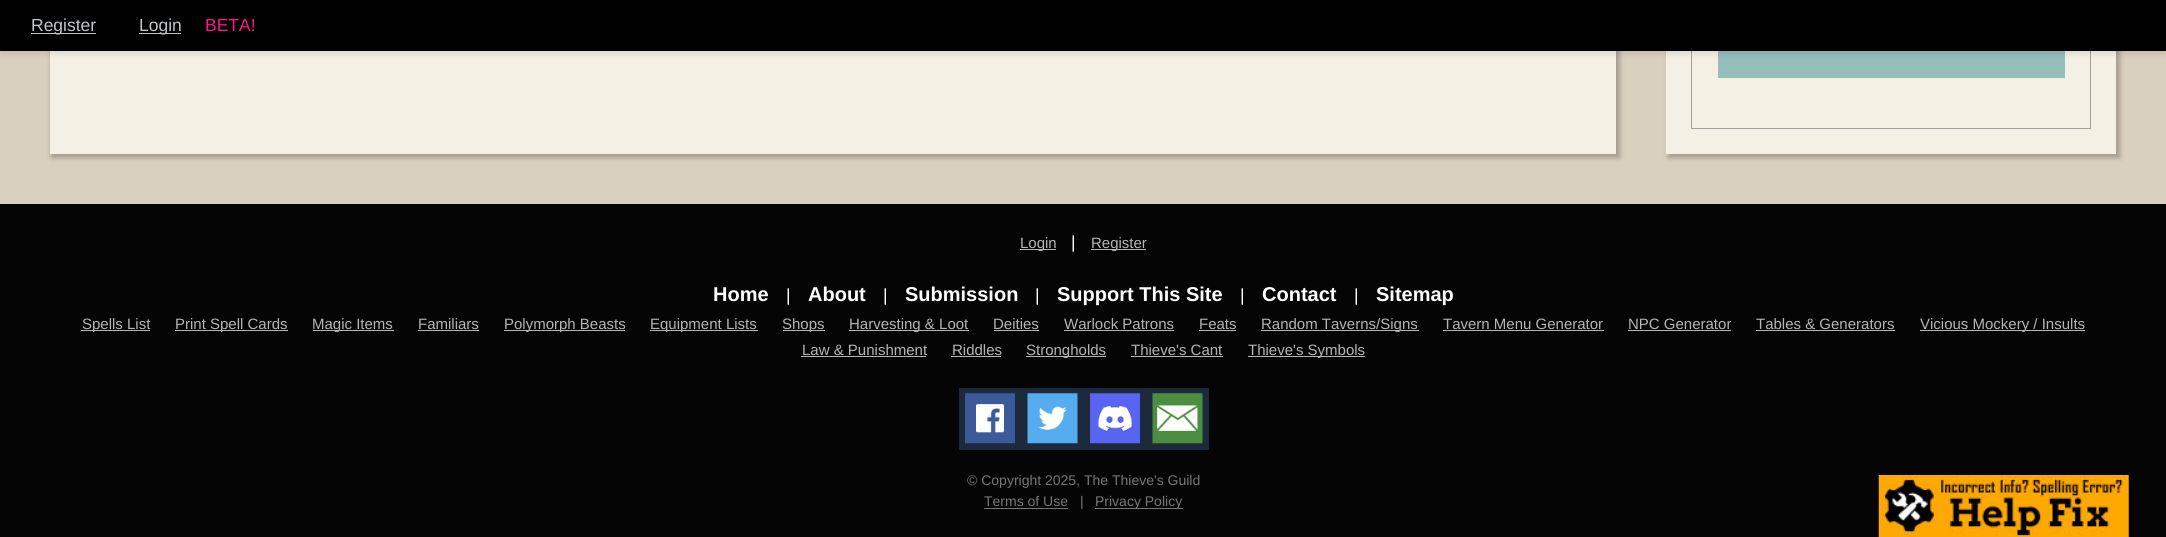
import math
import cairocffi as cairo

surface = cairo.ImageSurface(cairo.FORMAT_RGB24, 2166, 537)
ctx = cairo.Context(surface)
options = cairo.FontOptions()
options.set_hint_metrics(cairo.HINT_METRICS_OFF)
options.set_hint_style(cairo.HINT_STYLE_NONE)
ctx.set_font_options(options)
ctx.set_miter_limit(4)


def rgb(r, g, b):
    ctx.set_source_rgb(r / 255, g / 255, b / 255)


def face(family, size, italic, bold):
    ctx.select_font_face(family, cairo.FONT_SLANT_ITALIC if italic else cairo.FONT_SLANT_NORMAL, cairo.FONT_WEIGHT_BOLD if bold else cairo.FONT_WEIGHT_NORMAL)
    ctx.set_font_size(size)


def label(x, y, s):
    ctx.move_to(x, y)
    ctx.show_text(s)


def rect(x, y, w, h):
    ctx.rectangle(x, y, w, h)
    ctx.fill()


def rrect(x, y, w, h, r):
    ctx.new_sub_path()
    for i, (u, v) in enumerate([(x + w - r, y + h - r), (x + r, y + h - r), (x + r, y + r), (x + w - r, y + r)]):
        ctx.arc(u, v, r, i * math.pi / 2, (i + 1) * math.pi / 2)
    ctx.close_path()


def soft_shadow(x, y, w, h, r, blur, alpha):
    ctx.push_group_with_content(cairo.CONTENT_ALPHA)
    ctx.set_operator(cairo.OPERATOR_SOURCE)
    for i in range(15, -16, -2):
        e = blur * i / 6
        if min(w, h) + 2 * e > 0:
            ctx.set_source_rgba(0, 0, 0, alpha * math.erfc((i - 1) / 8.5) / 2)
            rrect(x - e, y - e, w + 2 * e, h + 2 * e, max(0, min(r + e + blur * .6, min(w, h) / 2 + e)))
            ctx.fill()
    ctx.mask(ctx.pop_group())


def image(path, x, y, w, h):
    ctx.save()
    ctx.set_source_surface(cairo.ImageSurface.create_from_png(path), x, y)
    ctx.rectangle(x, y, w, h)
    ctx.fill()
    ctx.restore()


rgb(218, 208, 192)
ctx.paint()
rgb(0, 0, 0)
soft_shadow(51, -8, 1569, 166, 0, 2.5, 0.25)
rgb(244, 240, 228)
rect(50, 51, 1566, 103)
rgb(0, 0, 0)
soft_shadow(1668, -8, 452, 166, 0, 2.5, 0.25)
rgb(244, 240, 228)
rect(1666, 51, 450, 103)
ctx.rectangle(1691.5, -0.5, 399, 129)
rgb(161, 161, 161)
ctx.set_line_width(1)
ctx.stroke()
rgb(149, 189, 186)
rect(1718, 51, 347, 27)
rgb(0, 0, 0)
soft_shadow(0, 3, 2166, 51, 0, 3, 0.1)
rgb(0, 0, 0)
rect(0, 0, 2166, 51)
rgb(193, 196, 200)
rect(31, 33, 65, 1)
face('Liberation Sans', 17.5, 0, 0)
label(31, 31, 'Register')
rect(139, 33, 42, 1)
label(139, 31, 'Login')
rgb(255, 20, 147)
label(205, 31, 'BETA!')
rgb(5, 5, 5)
rect(0, 204, 2166, 333)
rgb(181, 181, 181)
rect(1020, 249, 36, 1)
face('Liberation Sans', 15, 0, 0)
label(1020, 248, 'Login')
face('Liberation Sans', 17.5, 0, 0)
rgb(255, 255, 255)
label(1071, 248, '|')
rgb(181, 181, 181)
rect(1091, 249, 55, 1)
face('Liberation Sans', 15, 0, 0)
label(1091, 248, 'Register')
face('Liberation Sans', 20, 0, 1)
rgb(255, 255, 255)
label(713, 301, 'Home')
face('Liberation Sans', 17.5, 0, 0)
label(786, 301, '|')
face('Liberation Sans', 20, 0, 1)
label(808, 301, 'About')
face('Liberation Sans', 17.5, 0, 0)
label(883, 301, '|')
face('Liberation Sans', 20, 0, 1)
label(905, 301, 'Submission')
face('Liberation Sans', 17.5, 0, 0)
label(1035, 301, '|')
face('Liberation Sans', 20, 0, 1)
label(1057, 301, 'Support This Site')
face('Liberation Sans', 17.5, 0, 0)
label(1240, 301, '|')
face('Liberation Sans', 20, 0, 1)
label(1262, 301, 'Contact')
face('Liberation Sans', 17.5, 0, 0)
label(1354, 301, '|')
face('Liberation Sans', 20, 0, 1)
label(1376, 301, 'Sitemap')
rgb(181, 181, 181)
rect(81, 330, 69, 1)
face('Liberation Sans', 15, 0, 0)
label(82, 329, 'Spells List')
rect(175, 330, 113, 1)
label(175, 329, 'Print Spell Cards')
rect(313, 330, 81, 1)
label(312, 329, 'Magic Items')
label(418, 329, 'Familiars')
rect(418, 330, 61, 1)
rect(504, 330, 121, 1)
label(504, 329, 'Polymorph Beasts')
rect(650, 330, 108, 1)
label(650, 329, 'Equipment Lists')
rect(783, 330, 42, 1)
label(782, 329, 'Shops')
rect(849, 330, 120, 1)
label(849, 329, 'Harvesting & Loot')
label(993, 329, 'Deities')
rect(994, 330, 45, 1)
label(1064, 329, 'Warlock Patrons')
rect(1064, 330, 110, 1)
label(1199, 329, 'Feats')
rect(1199, 330, 37, 1)
rect(1261, 330, 158, 1)
label(1261, 329, 'Random Taverns/Signs')
label(1443, 329, 'Tavern Menu Generator')
rect(1443, 330, 161, 1)
label(1628, 329, 'NPC Generator')
rect(1628, 330, 103, 1)
label(1756, 329, 'Tables & Generators')
rect(1756, 330, 139, 1)
rect(1920, 330, 165, 1)
label(1920, 329, 'Vicious Mockery / Insults')
label(802, 355, 'Law & Punishment')
rect(801, 356, 125, 1)
label(952, 355, 'Riddles')
rect(951, 356, 50, 1)
rect(1026, 356, 80, 1)
label(1026, 355, 'Strongholds')
label(1131, 355, 'Thieve\'s Cant')
rect(1131, 356, 92, 1)
rect(1248, 356, 117, 1)
label(1248, 355, 'Thieve\'s Symbols')
rgb(28, 42, 59)
rect(959, 388, 250, 62)
image('image0.png', 965, 393, 50, 51)
image('image1.png', 1027, 393, 51, 51)
image('image2.png', 1090, 393, 50, 51)
image('image3.png', 1152, 393, 51, 51)
face('Liberation Sans', 14, 0, 0)
rgb(119, 119, 119)
label(967, 485, '© Copyright 2025, The Thieve\'s Guild')
label(984, 506, 'Terms of Use')
rect(984, 508, 84, 1)
label(1080, 506, '|')
rect(1095, 508, 88, 1)
label(1095, 506, 'Privacy Policy')
image('image4.png', 1878, 475, 251, 62)
surface.write_to_png('render.png')
